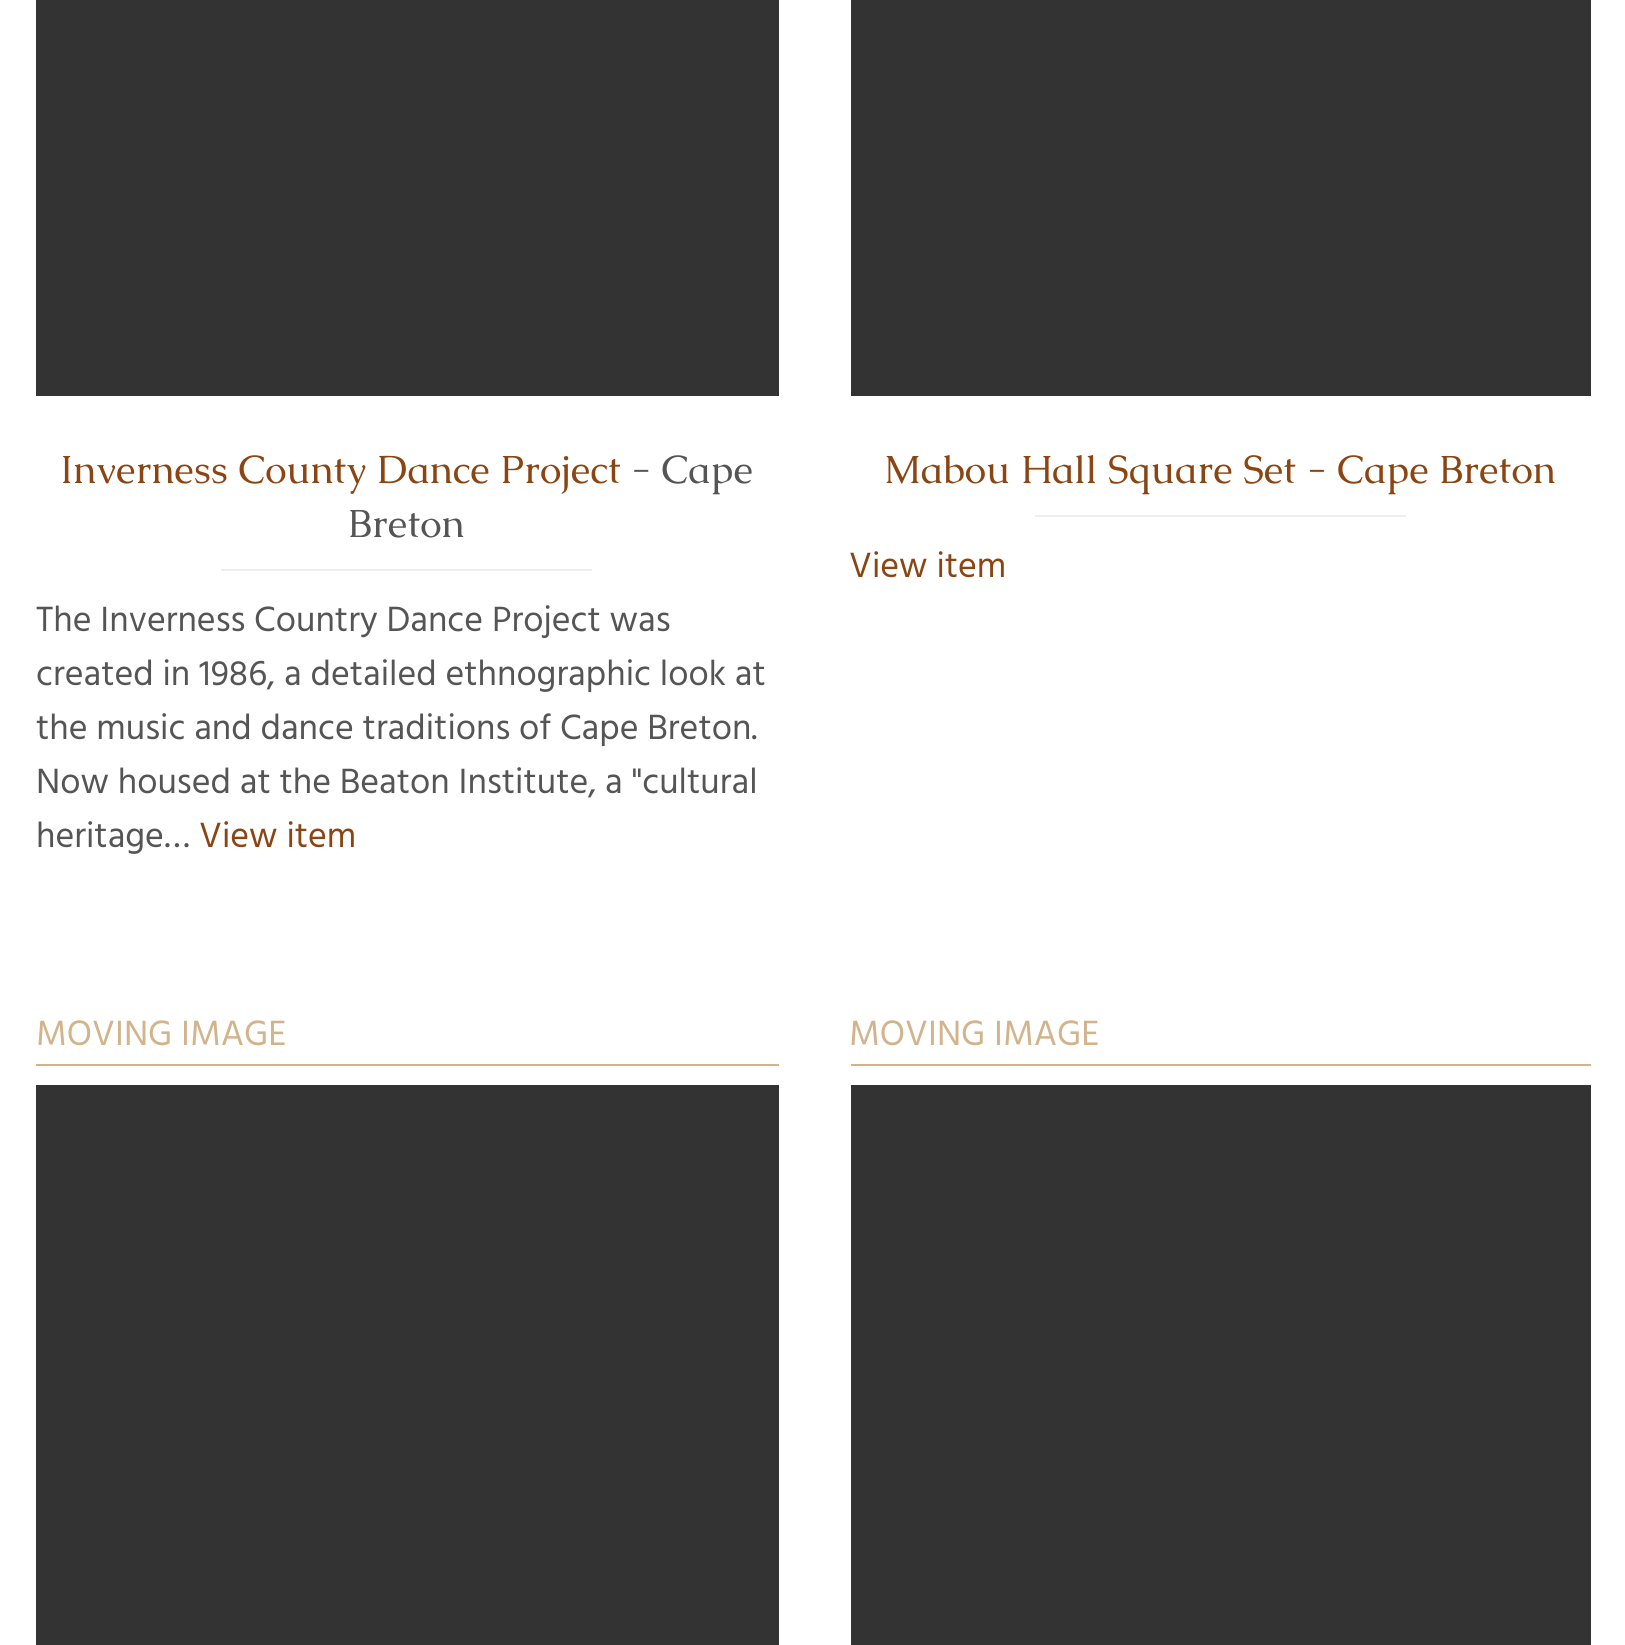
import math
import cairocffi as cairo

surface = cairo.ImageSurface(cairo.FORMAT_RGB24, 1625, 1645)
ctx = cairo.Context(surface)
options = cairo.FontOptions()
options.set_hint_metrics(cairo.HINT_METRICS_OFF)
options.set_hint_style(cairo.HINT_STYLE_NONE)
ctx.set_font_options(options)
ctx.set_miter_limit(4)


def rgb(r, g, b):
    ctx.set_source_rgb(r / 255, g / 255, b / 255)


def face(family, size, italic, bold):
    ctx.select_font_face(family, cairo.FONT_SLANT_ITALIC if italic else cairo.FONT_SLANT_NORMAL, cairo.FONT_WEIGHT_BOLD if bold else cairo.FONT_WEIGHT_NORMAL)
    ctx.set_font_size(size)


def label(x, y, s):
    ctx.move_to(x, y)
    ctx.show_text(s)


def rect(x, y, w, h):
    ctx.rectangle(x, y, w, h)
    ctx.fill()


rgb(255, 255, 255)
ctx.paint()
rgb(51, 51, 51)
rect(36, 0, 743, 396)
face('Caudex', 39.4, 0, 0)
rgb(139, 69, 19)
label(60, 483, 'Inverness County Dance Project')
rgb(85, 85, 85)
label(631, 483, '- Cape')
label(348, 537, 'Breton')
rgb(238, 238, 238)
rect(221, 569, 371, 2)
face('Hind', 36, 0, 0)
rgb(85, 85, 85)
label(36, 631, 'The Inverness Country Dance Project was')
label(36, 685, 'created in 1986, a detailed ethnographic look at')
label(36, 739, 'the music and dance traditions of Cape Breton.')
label(36, 793, 'Now housed at the Beaton Institute, a "cultural')
label(36, 847, 'heritage…')
rgb(139, 69, 19)
label(199, 847, 'View item')
rgb(51, 51, 51)
rect(851, 0, 740, 396)
face('Caudex', 39.4, 0, 0)
rgb(139, 69, 19)
label(884, 483, 'Mabou Hall Square Set - Cape Breton')
rgb(238, 238, 238)
rect(1035, 515, 371, 2)
face('Hind', 36, 0, 0)
rgb(139, 69, 19)
label(849, 577, 'View item')
rgb(210, 180, 140)
rect(36, 1064, 743, 2)
label(36, 1045, 'MOVING IMAGE')
rgb(51, 51, 51)
rect(36, 1085, 743, 560)
rgb(210, 180, 140)
rect(851, 1064, 740, 2)
label(849, 1045, 'MOVING IMAGE')
rgb(51, 51, 51)
rect(851, 1085, 740, 560)
surface.write_to_png('render.png')
